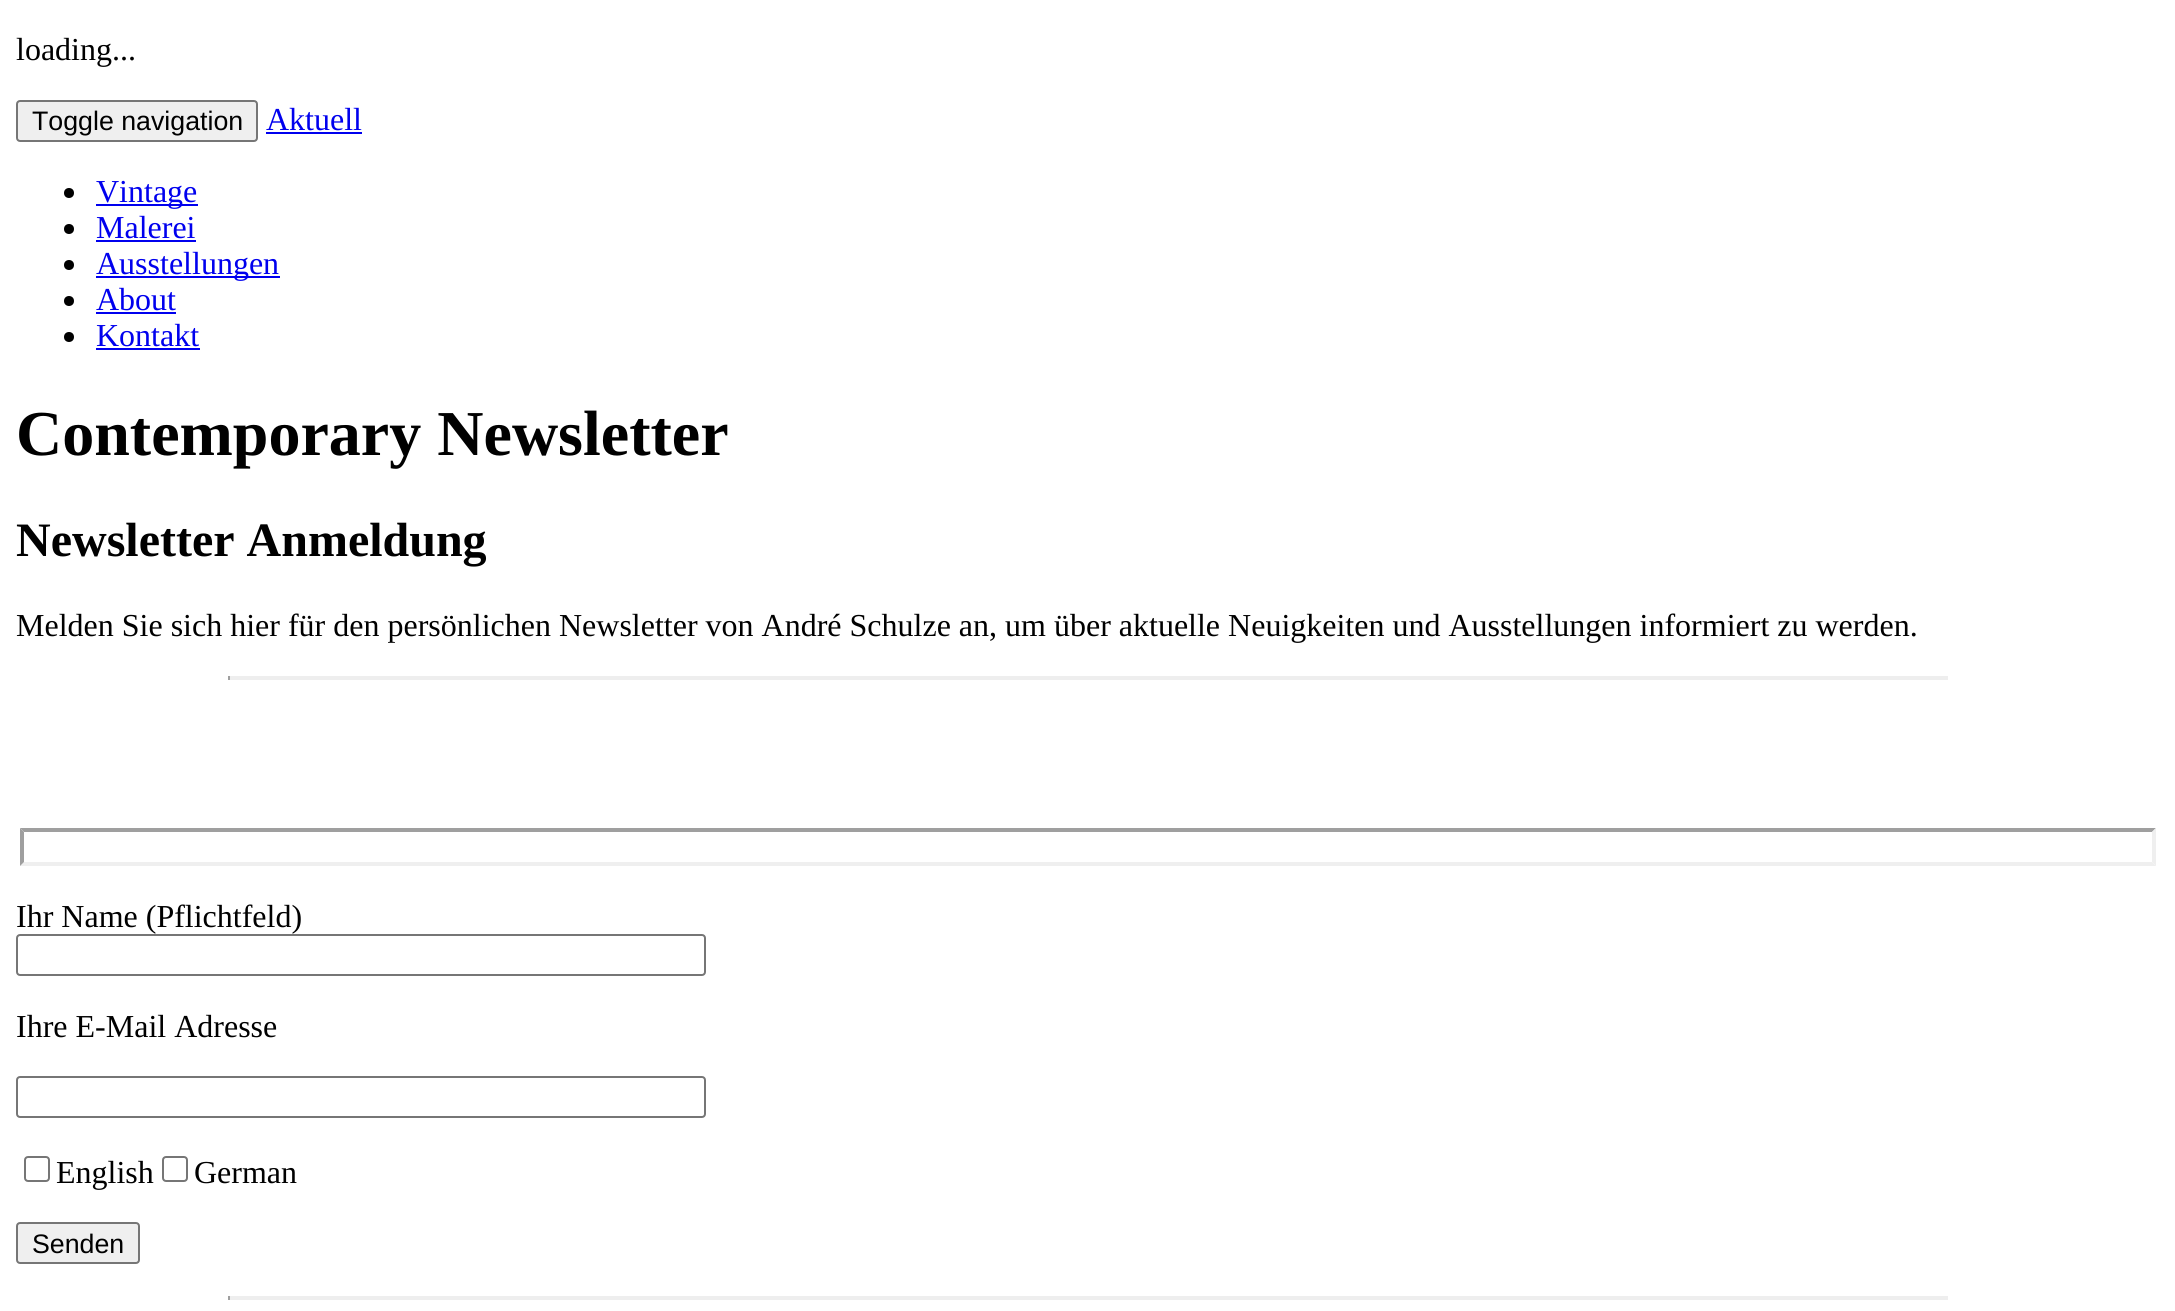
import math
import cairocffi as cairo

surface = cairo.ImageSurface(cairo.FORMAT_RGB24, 2175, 1311)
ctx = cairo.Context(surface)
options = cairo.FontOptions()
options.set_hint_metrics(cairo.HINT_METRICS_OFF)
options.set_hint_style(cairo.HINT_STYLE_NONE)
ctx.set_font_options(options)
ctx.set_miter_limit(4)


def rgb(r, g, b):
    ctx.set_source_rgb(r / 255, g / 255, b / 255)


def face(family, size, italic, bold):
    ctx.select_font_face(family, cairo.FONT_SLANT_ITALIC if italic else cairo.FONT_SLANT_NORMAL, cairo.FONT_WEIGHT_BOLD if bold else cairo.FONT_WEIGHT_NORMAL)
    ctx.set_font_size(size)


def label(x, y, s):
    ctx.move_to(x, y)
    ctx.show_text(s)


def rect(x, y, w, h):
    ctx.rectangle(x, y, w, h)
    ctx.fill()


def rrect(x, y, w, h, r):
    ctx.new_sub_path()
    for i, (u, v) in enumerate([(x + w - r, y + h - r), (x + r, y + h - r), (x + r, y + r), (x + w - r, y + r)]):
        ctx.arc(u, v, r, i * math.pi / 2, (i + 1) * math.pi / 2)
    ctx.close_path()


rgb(255, 255, 255)
ctx.paint()
face('Liberation Serif', 32, 0, 0)
rgb(0, 0, 0)
label(16, 60, 'loading...')
rgb(239, 239, 239)
rrect(17, 101, 240, 40, 3)
ctx.fill_preserve()
rgb(118, 118, 118)
ctx.stroke()
face('Liberation Sans', 26.75, 0, 0)
rgb(0, 0, 0)
label(32, 130, 'Toggle navigation')
face('Liberation Serif', 32, 0, 0)
rgb(0, 0, 238)
label(266, 130, 'Aktuell')
rect(266, 132, 96, 2)
rgb(0, 0, 0)
ctx.new_path()
ctx.arc(69, 193, 5, 0, 2 * math.pi)
ctx.fill()
rgb(0, 0, 238)
rect(96, 204, 102, 2)
label(96, 202, 'Vintage')
rgb(0, 0, 0)
ctx.new_path()
ctx.arc(69, 229, 5, 0, 2 * math.pi)
ctx.fill()
rgb(0, 0, 238)
label(96, 238, 'Malerei')
rect(96, 240, 100, 2)
rgb(0, 0, 0)
ctx.new_path()
ctx.arc(69, 265, 5, 0, 2 * math.pi)
ctx.fill()
rgb(0, 0, 238)
rect(96, 276, 184, 2)
label(96, 274, 'Ausstellungen')
rgb(0, 0, 0)
ctx.new_path()
ctx.arc(69, 301, 5, 0, 2 * math.pi)
ctx.fill()
rgb(0, 0, 238)
label(96, 310, 'About')
rect(96, 312, 80, 2)
rgb(0, 0, 0)
ctx.new_path()
ctx.arc(69, 337, 5, 0, 2 * math.pi)
ctx.fill()
rgb(0, 0, 238)
label(96, 346, 'Kontakt')
rect(96, 348, 104, 2)
face('Liberation Serif', 64, 0, 1)
rgb(0, 0, 0)
label(16, 455, 'Contemporary Newsletter')
face('Liberation Serif', 48, 0, 1)
label(16, 556, 'Newsletter Anmeldung')
face('Liberation Serif', 32, 0, 0)
label(16, 636, 'Melden Sie sich hier für den persönlichen Newsletter von André Schulze an, um über aktuelle Neuigkeiten und Ausstellungen informiert zu werden.')
rgb(238, 238, 238)
rect(228, 676, 1720, 2)
rect(1946, 676, 2, 4)
rect(228, 678, 1720, 2)
rgb(159, 159, 159)
rect(228, 676, 2, 4)
ctx.new_path()
ctx.move_to(20, 828)
ctx.line_to(2156, 828)
ctx.line_to(2152, 832)
ctx.line_to(24, 832)
ctx.close_path()
ctx.fill()
rgb(239, 239, 239)
ctx.new_path()
ctx.move_to(2156, 828)
ctx.line_to(2156, 866)
ctx.line_to(2152, 862)
ctx.line_to(2152, 832)
ctx.close_path()
ctx.fill()
ctx.new_path()
ctx.move_to(2156, 866)
ctx.line_to(20, 866)
ctx.line_to(24, 862)
ctx.line_to(2152, 862)
ctx.close_path()
ctx.fill()
rgb(159, 159, 159)
ctx.new_path()
ctx.move_to(20, 866)
ctx.line_to(20, 828)
ctx.line_to(24, 832)
ctx.line_to(24, 862)
ctx.close_path()
ctx.fill()
rgb(0, 0, 0)
label(16, 927, 'Ihr Name (Pflichtfeld)')
rrect(17, 935, 688, 40, 3)
rgb(118, 118, 118)
ctx.stroke()
rgb(0, 0, 0)
label(16, 1037, 'Ihre E-Mail Adresse')
rrect(17, 1077, 688, 40, 3)
rgb(118, 118, 118)
ctx.stroke()
rrect(25, 1157, 24, 24, 3)
ctx.stroke()
rgb(0, 0, 0)
label(56, 1183, 'English')
rrect(163, 1157, 24, 24, 3)
rgb(118, 118, 118)
ctx.stroke()
rgb(0, 0, 0)
label(194, 1183, 'German')
rgb(239, 239, 239)
rrect(17, 1223, 122, 40, 3)
ctx.fill_preserve()
rgb(118, 118, 118)
ctx.stroke()
face('Liberation Sans', 26.75, 0, 0)
rgb(0, 0, 0)
label(32, 1253, 'Senden')
rgb(238, 238, 238)
rect(228, 1296, 1720, 2)
rect(1946, 1296, 2, 4)
rect(228, 1298, 1720, 2)
rgb(159, 159, 159)
rect(228, 1296, 2, 4)
surface.write_to_png('render.png')
